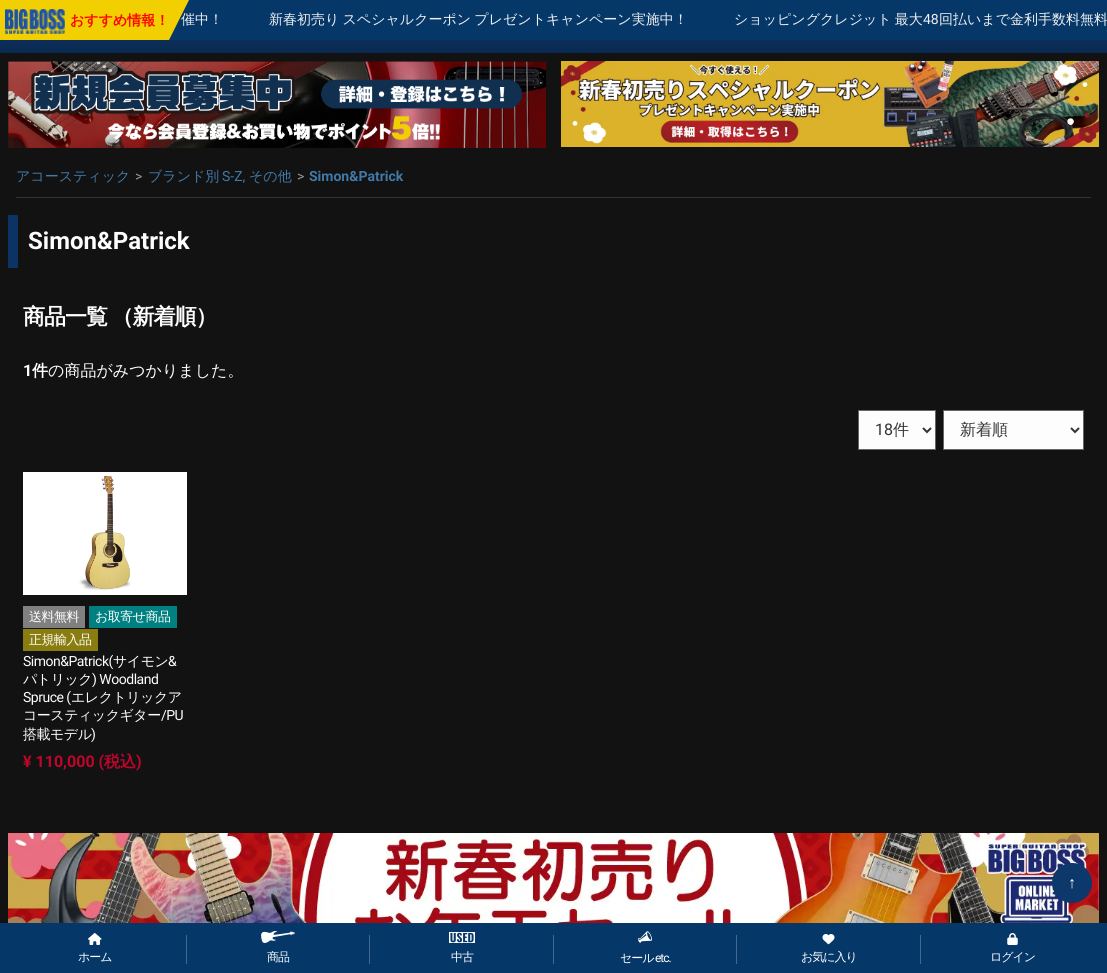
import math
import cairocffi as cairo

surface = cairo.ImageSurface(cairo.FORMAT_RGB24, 1107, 973)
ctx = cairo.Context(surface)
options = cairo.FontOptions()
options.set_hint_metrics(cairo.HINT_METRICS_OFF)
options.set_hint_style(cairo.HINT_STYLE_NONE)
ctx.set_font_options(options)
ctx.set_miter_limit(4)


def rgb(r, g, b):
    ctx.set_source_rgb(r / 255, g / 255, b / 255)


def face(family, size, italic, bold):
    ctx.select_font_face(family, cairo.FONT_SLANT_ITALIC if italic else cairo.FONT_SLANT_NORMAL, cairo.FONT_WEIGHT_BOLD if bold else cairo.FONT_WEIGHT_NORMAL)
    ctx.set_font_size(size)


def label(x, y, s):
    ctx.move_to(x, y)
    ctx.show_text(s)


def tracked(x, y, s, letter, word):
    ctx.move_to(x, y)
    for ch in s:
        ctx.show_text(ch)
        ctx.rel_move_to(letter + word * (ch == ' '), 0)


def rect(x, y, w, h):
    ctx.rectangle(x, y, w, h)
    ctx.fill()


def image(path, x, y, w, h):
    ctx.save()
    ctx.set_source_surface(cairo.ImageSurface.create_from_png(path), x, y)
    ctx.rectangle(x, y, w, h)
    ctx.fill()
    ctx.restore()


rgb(18, 18, 18)
ctx.paint()
rgb(5, 55, 105)
rect(169, 0, 938, 40)
rgb(241, 207, 0)
rect(0, 0, 169, 40)
image('image0.png', 5, 9, 60, 25)
face('WenQuanYi Zen Hei', 14, 0, 1)
rgb(255, 0, 0)
label(70, 25, 'おすすめ情報！')
face('WenQuanYi Zen Hei Medium', 14, 0, 0)
rgb(239, 239, 239)
tracked(181, 24, '催中！', 0, -1)
rgb(241, 207, 0)
ctx.new_path()
ctx.move_to(169, 0)
ctx.line_to(189, 0)
ctx.line_to(169, 40)
ctx.close_path()
ctx.fill()
rgb(239, 239, 239)
tracked(269, 24, '新春初売り スペシャルクーポン プレゼントキャンペーン実施中！', 0, -1)
tracked(734, 24, 'ショッピングクレジット 最大', 0, -1)
face('Roboto', 14, 0, 0)
label(923, 24, '48')
face('WenQuanYi Zen Hei Medium', 14, 0, 0)
label(939, 24, '回払いまで金利手数料無料')
gradient = cairo.LinearGradient(554, 5, 554, 53)
gradient.add_color_stop_rgba(0, 0.051, 0.22, 0.42, 1)
gradient.add_color_stop_rgba(1, 0.039, 0.165, 0.322, 1)
ctx.set_source(gradient)
rect(0, 40, 1107, 13)
image('image1.png', 8, 61, 538, 87)
image('image2.png', 561, 61, 538, 86)
rgb(51, 51, 51)
rect(16, 197, 1075, 1)
rgb(65, 121, 169)
label(16, 181, 'アコースティック')
face('Roboto', 14, 0, 0)
rgb(153, 153, 153)
label(135, 181, '>')
face('WenQuanYi Zen Hei Medium', 14, 0, 0)
rgb(65, 121, 169)
label(148, 181, 'ブランド別')
face('Roboto', 14, 0, 0)
label(222, 181, 'S-Z,')
face('WenQuanYi Zen Hei Medium', 14, 0, 0)
label(249, 181, 'その他')
face('Roboto', 14, 0, 0)
rgb(153, 153, 153)
label(297, 181, '>')
face('Roboto', 14, 0, 1)
rgb(65, 121, 169)
label(309, 181, 'Simon&Patrick')
rgb(11, 52, 100)
rect(8, 215, 10, 53)
face('Roboto', 24, 0, 1)
rgb(254, 254, 254)
label(28, 249, 'Simon&Patrick')
face('WenQuanYi Zen Hei', 22, 0, 1)
tracked(23, 324, '商品一覧 （新着順）', -1, -1)
face('Roboto', 16, 0, 1)
label(23, 376, '1')
face('WenQuanYi Zen Hei', 16, 0, 1)
label(32, 376, '件')
face('WenQuanYi Zen Hei Medium', 16, 0, 0)
label(48, 376, 'の商品がみつかりました。')
rgb(253, 253, 253)
ctx.rectangle(858.5, 410.5, 77, 39)
ctx.fill_preserve()
rgb(102, 102, 102)
ctx.set_line_width(1)
ctx.stroke()
ctx.new_path()
ctx.move_to(923, 428)
ctx.line_to(927, 432)
ctx.line_to(931, 428)
rgb(51, 51, 51)
ctx.set_line_width(2)
ctx.stroke()
face('Roboto', 16, 0, 0)
label(875, 435, '18')
face('WenQuanYi Zen Hei Medium', 16, 0, 0)
label(893, 435, '件')
rgb(253, 253, 253)
ctx.rectangle(943.5, 410.5, 140, 39)
ctx.fill_preserve()
rgb(102, 102, 102)
ctx.set_line_width(1)
ctx.stroke()
ctx.new_path()
ctx.move_to(1071, 428)
ctx.line_to(1075, 432)
ctx.line_to(1079, 428)
rgb(51, 51, 51)
ctx.set_line_width(2)
ctx.stroke()
label(960, 435, '新着順')
image('image3.png', 23, 472, 164, 123)
rgb(128, 128, 128)
rect(23, 606, 62, 22)
face('WenQuanYi Zen Hei Medium', 13, 0, 0)
rgb(254, 254, 254)
tracked(29, 621, '送料無料', -0.5, 0)
rgb(0, 128, 128)
rect(89, 606, 88, 22)
rgb(254, 254, 254)
tracked(95, 621, 'お取寄せ商品', -0.5, 0)
rgb(138, 125, 15)
rect(23, 629, 75, 22)
rgb(254, 254, 254)
tracked(29, 644, '正規輸入品', -0.5, 0)
face('Roboto', 14, 0, 0)
tracked(23, 666, 'Simon&Patrick(', -0.5, 0)
face('WenQuanYi Zen Hei Medium', 14, 0, 0)
tracked(113, 666, 'サイモン', -0.5, 0)
face('Roboto', 14, 0, 0)
tracked(168, 666, '&', -0.5, 0)
face('WenQuanYi Zen Hei Medium', 14, 0, 0)
tracked(23, 684, 'パトリック', -0.5, 0)
face('Roboto', 14, 0, 0)
tracked(92, 684, ') Woodland', -0.5, 0)
tracked(23, 702, 'Spruce (', -0.5, 0)
face('WenQuanYi Zen Hei Medium', 14, 0, 0)
tracked(71, 702, 'エレクトリックア', -0.5, 0)
tracked(23, 720, 'コースティックギター', -0.5, 0)
face('Roboto', 14, 0, 0)
tracked(161, 720, '/PU', -0.5, 0)
face('WenQuanYi Zen Hei Medium', 14, 0, 0)
tracked(23, 739, '搭載モデル', -0.5, 0)
face('Roboto', 14, 0, 0)
tracked(91, 739, ')', -0.5, 0)
face('Roboto', 16, 0, 1)
rgb(191, 5, 43)
label(23, 767, '¥ 110,000 (')
face('WenQuanYi Zen Hei', 16, 0, 1)
label(104, 767, '税込')
face('Roboto', 16, 0, 1)
label(136, 767, ')')
image('image4.png', 8, 833, 1091, 90)
rgb(13, 56, 107)
ctx.arc(1072, 883, 20, 0, 2 * math.pi)
ctx.fill()
face('Liberation Sans', 16, 0, 0)
rgb(254, 254, 254)
label(1068, 888, '↑')
rgb(5, 55, 105)
rect(0, 923, 1107, 50)
image('image5.png', 88, 933, 14, 12)
rgb(68, 105, 143)
rect(186, 935, 1, 29)
face('WenQuanYi Zen Hei Medium', 12, 0, 0)
rgb(254, 254, 254)
tracked(78, 961, 'ホーム', -1, 0)
image('image6.png', 261, 931, 34, 12)
rgb(68, 105, 143)
rect(369, 935, 1, 29)
rgb(254, 254, 254)
tracked(267, 961, '商品', -1, 0)
image('image7.png', 449, 932, 26, 11)
rgb(68, 105, 143)
rect(553, 935, 1, 29)
rgb(254, 254, 254)
tracked(451, 961, '中古', -1, 0)
image('image8.png', 638, 931, 14, 12)
rgb(68, 105, 143)
rect(736, 935, 1, 29)
rgb(254, 254, 254)
tracked(620, 962, 'セール', -1, 0)
face('Roboto', 12, 0, 0)
tracked(655, 962, 'etc.', -1, 0)
image('image9.png', 822, 934, 13, 11)
rgb(68, 105, 143)
rect(920, 935, 1, 29)
face('WenQuanYi Zen Hei Medium', 12, 0, 0)
rgb(254, 254, 254)
tracked(801, 961, 'お気に入り', -1, 0)
image('image10.png', 1007, 933, 11, 12)
tracked(990, 961, 'ログイン', -1, 0)
surface.write_to_png('render.png')
